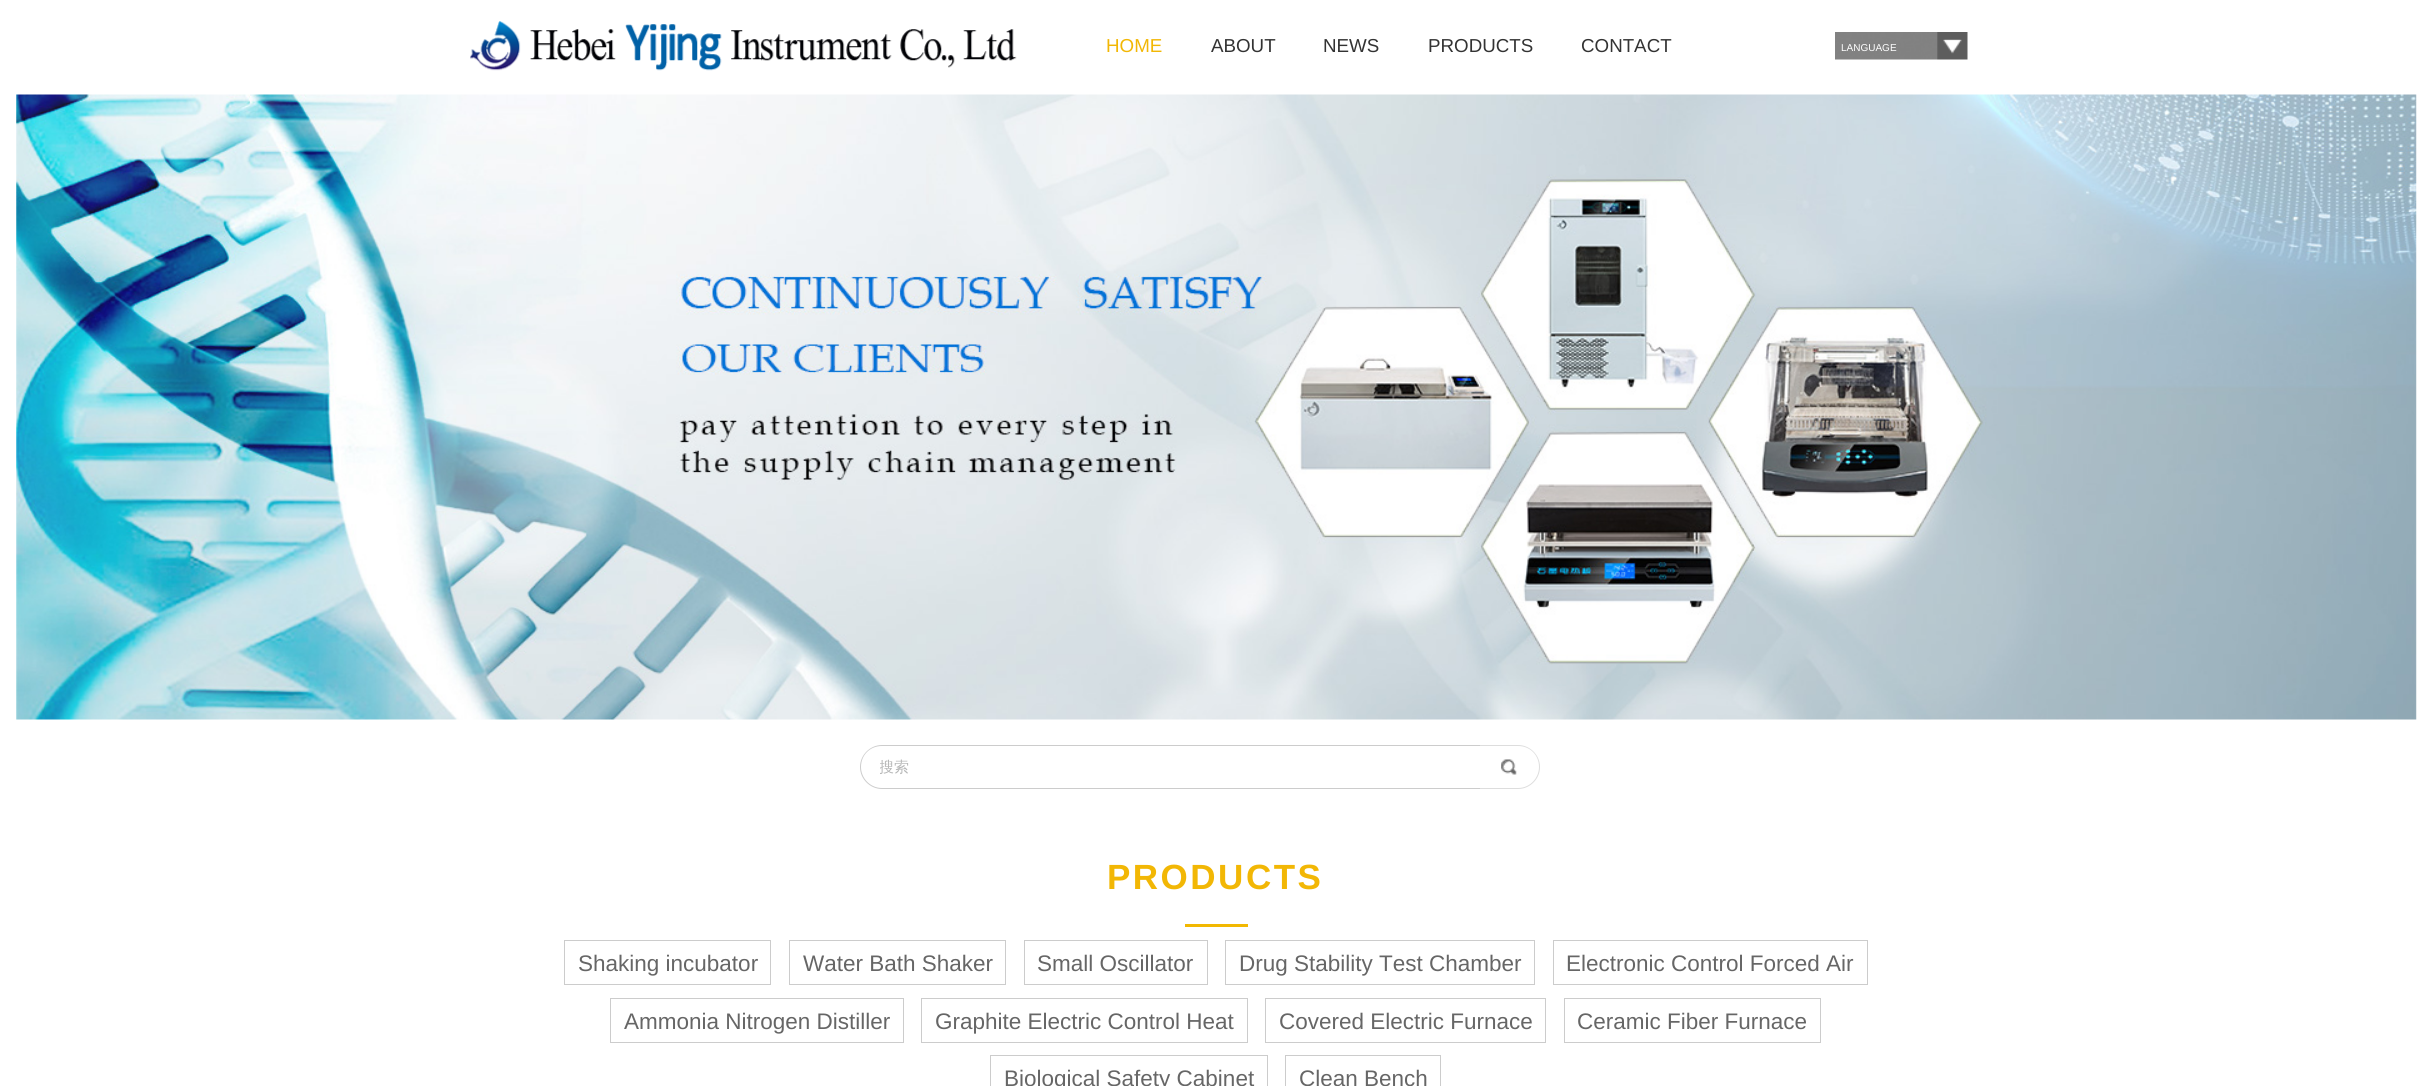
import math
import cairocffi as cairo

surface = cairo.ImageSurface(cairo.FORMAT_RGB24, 2431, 1086)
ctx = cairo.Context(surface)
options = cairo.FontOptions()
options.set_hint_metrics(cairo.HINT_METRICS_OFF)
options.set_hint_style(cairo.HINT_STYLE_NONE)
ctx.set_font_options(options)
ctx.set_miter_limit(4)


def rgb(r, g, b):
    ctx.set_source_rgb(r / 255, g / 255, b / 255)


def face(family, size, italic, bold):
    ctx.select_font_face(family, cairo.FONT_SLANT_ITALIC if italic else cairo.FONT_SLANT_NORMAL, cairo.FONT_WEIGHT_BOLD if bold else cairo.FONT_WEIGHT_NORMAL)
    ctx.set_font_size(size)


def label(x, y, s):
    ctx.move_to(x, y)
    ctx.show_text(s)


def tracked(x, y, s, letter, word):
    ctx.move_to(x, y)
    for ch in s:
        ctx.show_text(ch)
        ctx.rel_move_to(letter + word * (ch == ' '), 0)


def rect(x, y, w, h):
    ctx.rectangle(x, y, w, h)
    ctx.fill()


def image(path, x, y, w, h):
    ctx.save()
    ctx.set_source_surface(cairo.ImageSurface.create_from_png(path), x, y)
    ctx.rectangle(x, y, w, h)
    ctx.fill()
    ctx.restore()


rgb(255, 255, 255)
ctx.paint()
image('image0.png', 470, 21, 547, 50)
face('Liberation Sans', 18.75, 0, 0)
rgb(242, 183, 5)
label(1106, 52, 'HOME')
rgb(51, 51, 51)
label(1211, 52, 'ABOUT')
label(1323, 52, 'NEWS')
label(1428, 52, 'PRODUCTS')
label(1581, 52, 'CONTACT')
image('image1.png', 1835, 32, 133, 28)
face('Liberation Sans', 10, 0, 0)
rgb(255, 255, 255)
label(1841, 51, 'LANGUAGE')
image('image2.png', 16, 94, 2401, 626)
rgb(204, 204, 204)
ctx.set_fill_rule(cairo.FILL_RULE_EVEN_ODD)
ctx.new_path()
ctx.move_to(882, 745)
ctx.line_to(1480, 745)
ctx.line_to(1480, 789)
ctx.line_to(882, 789)
ctx.curve_to(870, 789, 860, 779, 860, 767)
ctx.curve_to(860, 755, 870, 745, 882, 745)
ctx.close_path()
ctx.move_to(882, 746)
ctx.line_to(1480, 746)
ctx.line_to(1480, 788)
ctx.line_to(882, 788)
ctx.curve_to(870, 788, 861, 778, 861, 767)
ctx.curve_to(861, 755, 870, 746, 882, 746)
ctx.close_path()
ctx.fill()
ctx.save()
ctx.set_fill_rule(cairo.FILL_RULE_WINDING)
ctx.rectangle(880, 758, 588, 21)
ctx.clip()
face('WenQuanYi Zen Hei Medium', 15, 0, 0)
rgb(182, 183, 183)
label(879, 772, '搜索')
ctx.restore()
image('image3.png', 1501, 759, 16, 16)
rgb(221, 221, 221)
ctx.new_path()
ctx.move_to(1480, 745)
ctx.line_to(1518, 745)
ctx.curve_to(1530, 745, 1540, 755, 1540, 767)
ctx.curve_to(1540, 779, 1530, 789, 1518, 789)
ctx.line_to(1480, 789)
ctx.close_path()
ctx.move_to(1480, 746)
ctx.line_to(1518, 746)
ctx.curve_to(1530, 746, 1539, 755, 1539, 767)
ctx.curve_to(1539, 778, 1530, 788, 1518, 788)
ctx.line_to(1480, 788)
ctx.close_path()
ctx.fill()
face('Liberation Sans', 35, 0, 1)
rgb(242, 183, 5)
tracked(1107, 889, 'PRODUCTS', 2.5, 0)
rgb(242, 184, 1)
rect(1185, 924, 63, 3)
ctx.rectangle(564.5, 940.5, 206, 44)
rgb(204, 204, 204)
ctx.set_line_width(1)
ctx.stroke()
face('Liberation Sans', 22.5, 0, 0)
rgb(102, 102, 102)
label(578, 971, 'Shaking incubator')
ctx.rectangle(789.5, 940.5, 216, 44)
rgb(204, 204, 204)
ctx.stroke()
rgb(102, 102, 102)
label(803, 971, 'Water Bath Shaker')
ctx.rectangle(1024.5, 940.5, 183, 44)
rgb(204, 204, 204)
ctx.stroke()
rgb(102, 102, 102)
label(1037, 971, 'Small Oscillator')
ctx.rectangle(1225.5, 940.5, 309, 44)
rgb(204, 204, 204)
ctx.stroke()
rgb(102, 102, 102)
label(1239, 971, 'Drug Stability Test Chamber')
ctx.rectangle(1553.5, 940.5, 314, 44)
rgb(204, 204, 204)
ctx.stroke()
rgb(102, 102, 102)
label(1566, 971, 'Electronic Control Forced Air')
ctx.rectangle(610.5, 998.5, 293, 44)
rgb(204, 204, 204)
ctx.stroke()
rgb(102, 102, 102)
label(624, 1029, 'Ammonia Nitrogen Distiller')
ctx.rectangle(921.5, 998.5, 326, 44)
rgb(204, 204, 204)
ctx.stroke()
rgb(102, 102, 102)
label(935, 1029, 'Graphite Electric Control Heat')
ctx.rectangle(1265.5, 998.5, 280, 44)
rgb(204, 204, 204)
ctx.stroke()
rgb(102, 102, 102)
label(1279, 1029, 'Covered Electric Furnace')
ctx.rectangle(1564.5, 998.5, 256, 44)
rgb(204, 204, 204)
ctx.stroke()
rgb(102, 102, 102)
label(1577, 1029, 'Ceramic Fiber Furnace')
ctx.rectangle(990.5, 1055.5, 277, 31)
rgb(204, 204, 204)
ctx.stroke()
rgb(102, 102, 102)
label(1004, 1086, 'Biological Safety Cabinet')
ctx.rectangle(1285.5, 1055.5, 155, 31)
rgb(204, 204, 204)
ctx.stroke()
rgb(102, 102, 102)
label(1299, 1086, 'Clean Bench')
surface.write_to_png('render.png')
